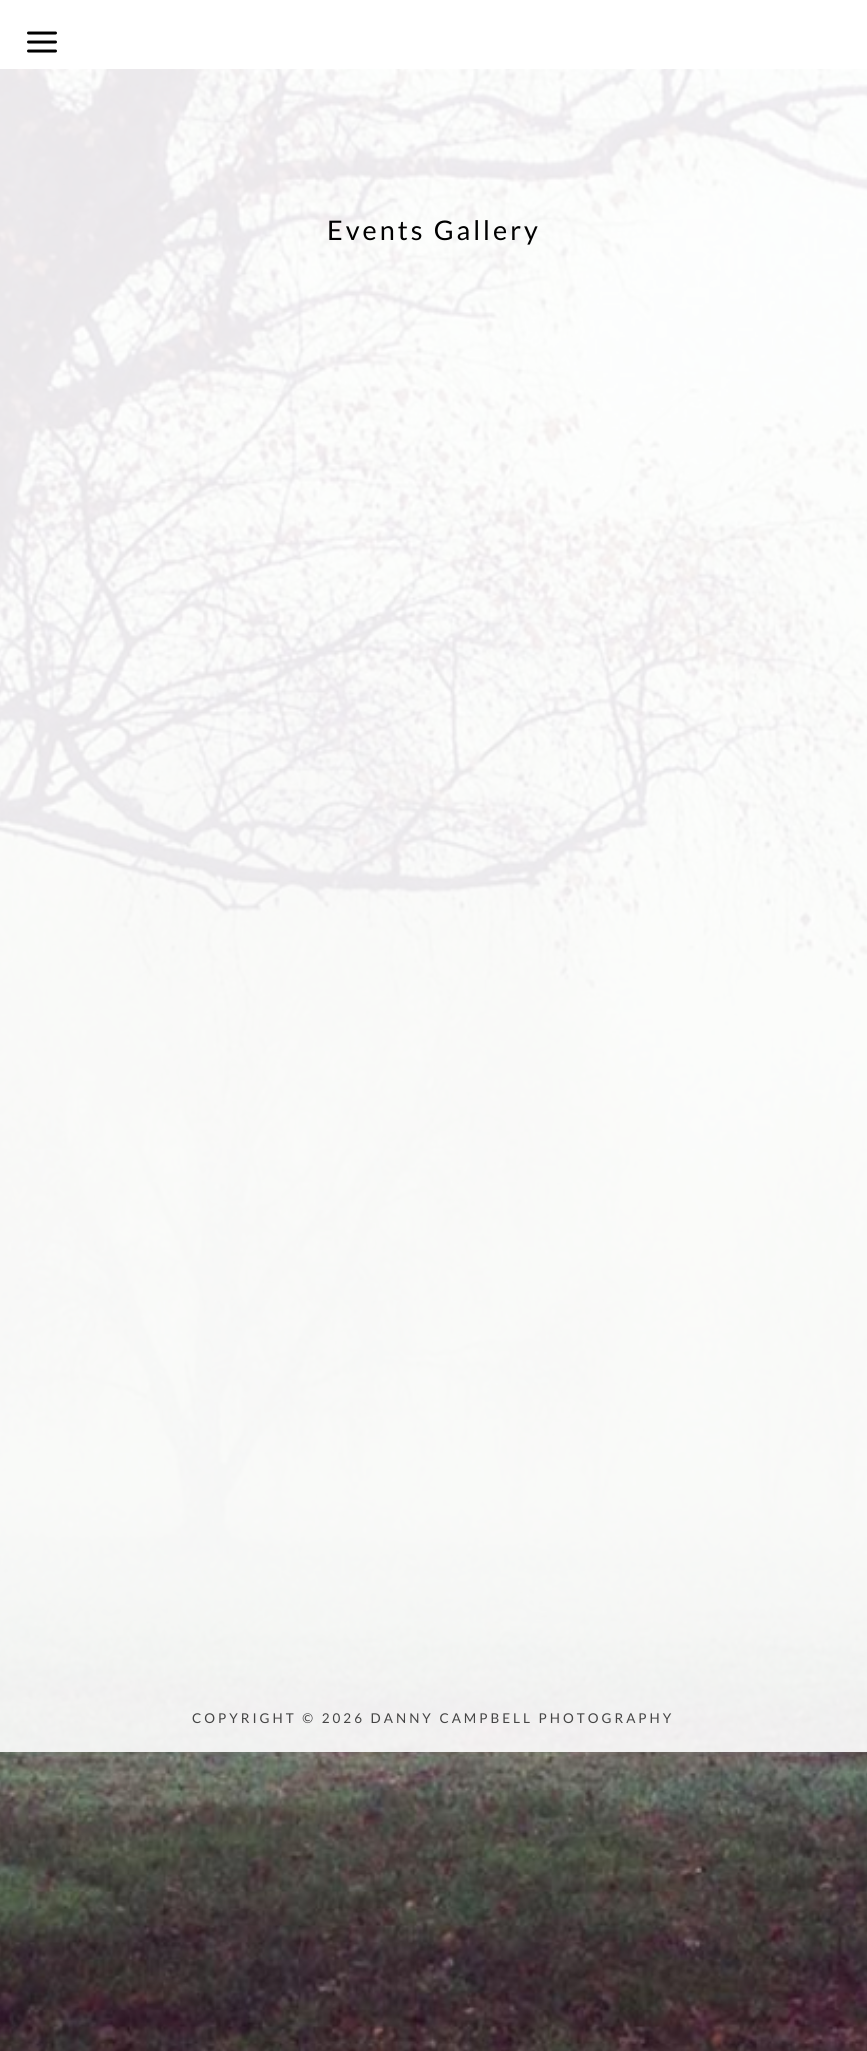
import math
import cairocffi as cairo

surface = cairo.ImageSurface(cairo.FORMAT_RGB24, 867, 2051)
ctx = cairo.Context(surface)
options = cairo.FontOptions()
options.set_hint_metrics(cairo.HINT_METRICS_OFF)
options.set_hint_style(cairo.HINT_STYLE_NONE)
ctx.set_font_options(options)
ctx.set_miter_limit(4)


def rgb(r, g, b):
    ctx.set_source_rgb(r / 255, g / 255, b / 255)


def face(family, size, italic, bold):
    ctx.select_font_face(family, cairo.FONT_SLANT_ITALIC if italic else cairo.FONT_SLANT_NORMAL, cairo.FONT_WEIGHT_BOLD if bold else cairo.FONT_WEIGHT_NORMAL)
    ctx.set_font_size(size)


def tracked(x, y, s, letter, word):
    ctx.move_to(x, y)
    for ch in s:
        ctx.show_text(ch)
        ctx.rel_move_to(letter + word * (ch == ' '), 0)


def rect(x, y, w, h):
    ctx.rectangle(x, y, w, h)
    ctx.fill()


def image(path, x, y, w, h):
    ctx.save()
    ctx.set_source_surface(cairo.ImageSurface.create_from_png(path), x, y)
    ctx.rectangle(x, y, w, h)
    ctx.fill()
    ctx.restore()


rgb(255, 255, 255)
ctx.paint()
image('image0.png', 27, 31, 30, 22)
image('image1.png', 0, 69, 867, 1982)
ctx.set_source_rgba(1, 1, 1, 0.9)
rect(0, 69, 867, 1683)
face('Lato', 27, 0, 0)
rgb(0, 0, 0)
tracked(327, 240, 'Events Gallery', 3, 0)
face('Lato', 13.5, 0, 0)
rgb(68, 68, 68)
tracked(192, 1723, 'COPYRIGHT © 2026 DANNY CAMPBELL PHOTOGRAPHY', 3, 0)
surface.write_to_png('render.png')
